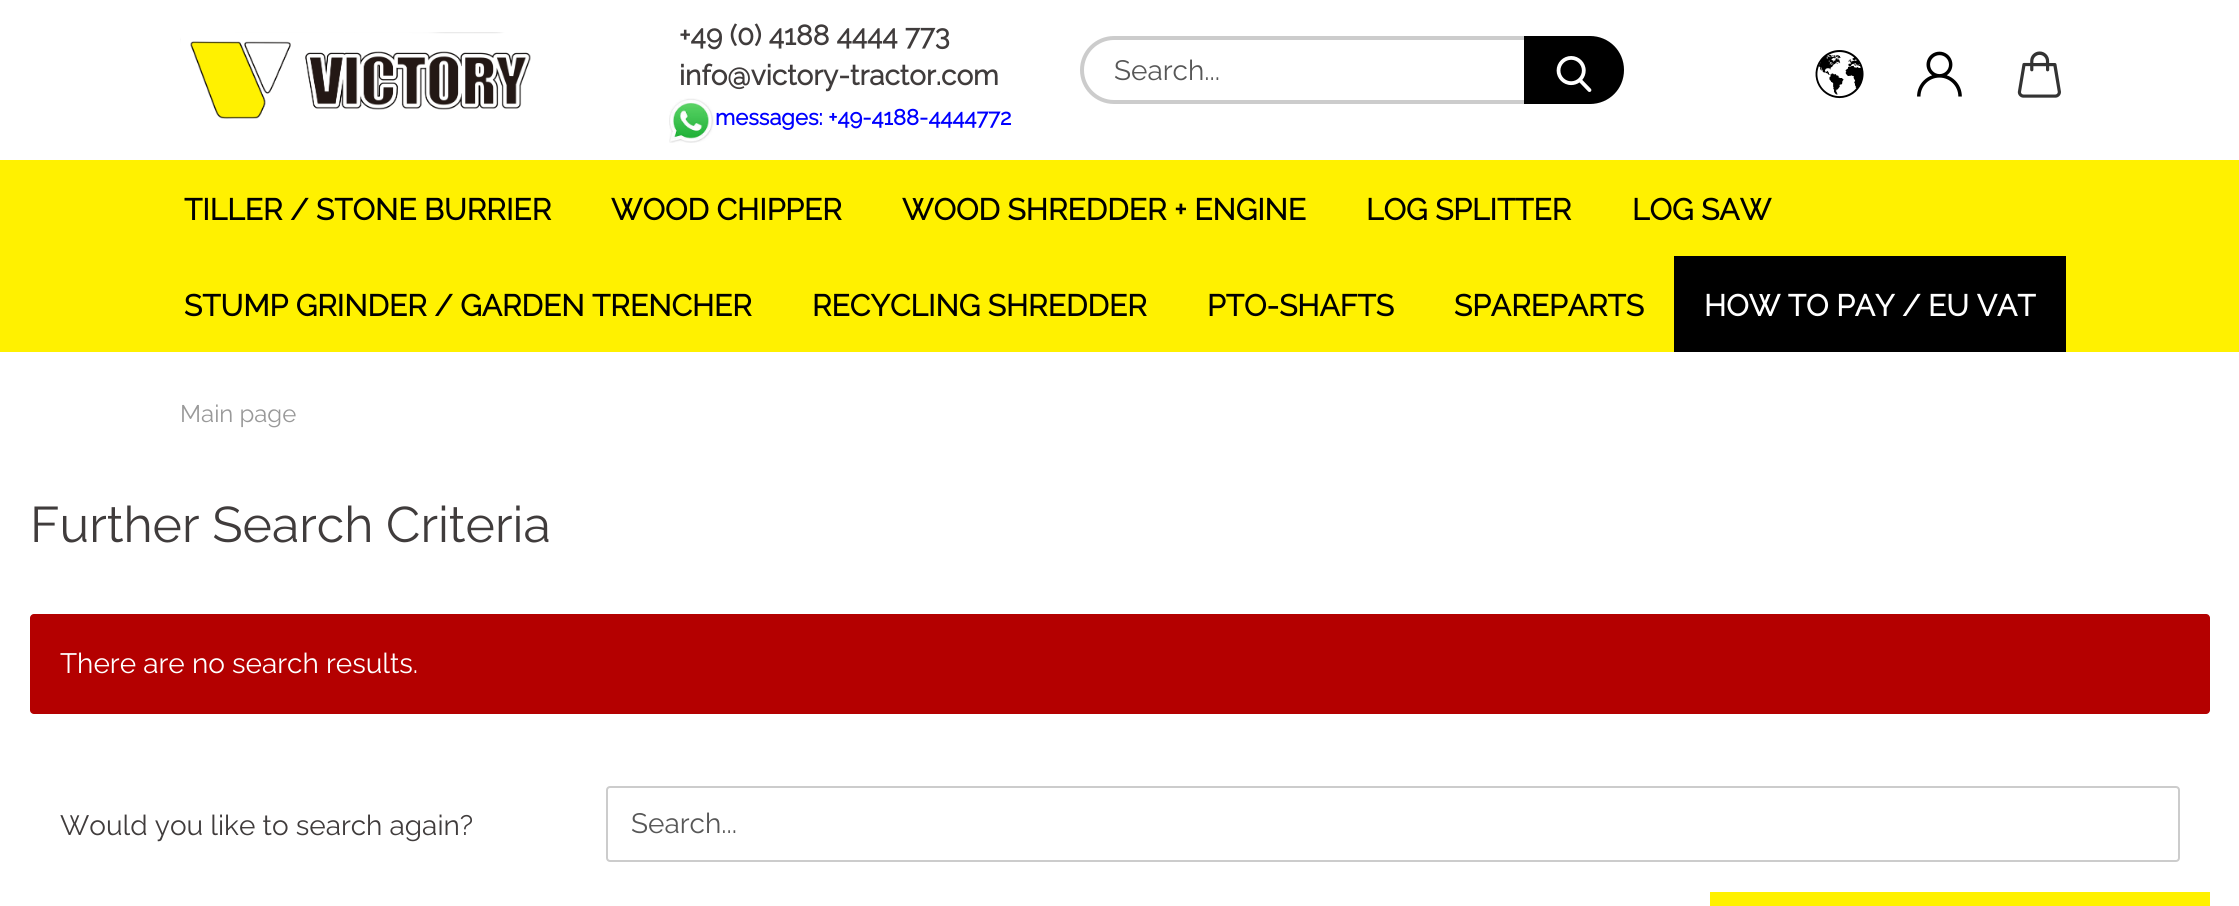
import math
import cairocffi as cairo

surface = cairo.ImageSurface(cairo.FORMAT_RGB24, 2239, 906)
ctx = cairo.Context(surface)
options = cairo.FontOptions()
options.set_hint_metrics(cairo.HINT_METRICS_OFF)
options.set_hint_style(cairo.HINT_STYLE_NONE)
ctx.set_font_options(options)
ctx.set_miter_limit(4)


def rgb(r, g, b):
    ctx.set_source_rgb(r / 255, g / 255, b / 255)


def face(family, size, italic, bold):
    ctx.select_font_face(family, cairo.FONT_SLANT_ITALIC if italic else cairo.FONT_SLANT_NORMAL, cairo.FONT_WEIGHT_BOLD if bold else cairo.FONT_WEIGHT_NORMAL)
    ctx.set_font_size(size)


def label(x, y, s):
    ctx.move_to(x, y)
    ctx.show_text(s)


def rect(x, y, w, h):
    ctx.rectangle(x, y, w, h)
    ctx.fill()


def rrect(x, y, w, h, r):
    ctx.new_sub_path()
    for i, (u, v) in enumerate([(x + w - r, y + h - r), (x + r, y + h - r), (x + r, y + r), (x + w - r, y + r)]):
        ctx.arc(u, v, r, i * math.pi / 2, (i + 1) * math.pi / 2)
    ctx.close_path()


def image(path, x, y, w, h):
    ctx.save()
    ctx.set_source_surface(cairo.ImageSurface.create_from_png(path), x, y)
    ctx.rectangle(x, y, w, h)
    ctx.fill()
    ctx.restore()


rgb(255, 255, 255)
ctx.paint()
image('image0.png', 180, 32, 351, 87)
face('Raleway', 28, 0, 1)
rgb(64, 60, 60)
label(679, 45, '+49 (0) 4188 4444 773')
label(679, 85, 'info@victory-tractor.com')
image('image1.png', 669, 98, 45, 45)
face('Raleway', 22, 0, 1)
rgb(0, 0, 255)
label(715, 125, 'messages: +49-4188-4444772')
rrect(1082, 38, 536, 64, 32)
rgb(204, 204, 204)
ctx.set_line_width(4)
ctx.stroke()
face('Raleway Thin', 28, 0, 0)
rgb(87, 87, 87)
label(1114, 80, 'Search...')
rgb(0, 0, 0)
ctx.new_path()
ctx.move_to(1524, 36)
ctx.line_to(1590, 36)
ctx.curve_to(1609, 36, 1624, 51, 1624, 70)
ctx.curve_to(1624, 89, 1609, 104, 1590, 104)
ctx.line_to(1524, 104)
ctx.close_path()
ctx.fill()
image('image2.png', 1556, 56, 36, 36)
image('image3.png', 1815, 50, 49, 49)
image('image4.png', 1917, 51, 45, 46)
image('image5.png', 2017, 51, 44, 47)
rgb(255, 241, 0)
rect(0, 160, 2239, 192)
face('Raleway', 30, 0, 1)
rgb(0, 0, 0)
label(184, 220, 'TILLER / STONE BURRIER')
label(611, 220, 'WOOD CHIPPER')
label(902, 220, 'WOOD SHREDDER + ENGINE')
label(1366, 220, 'LOG SPLITTER')
label(1632, 220, 'LOG SAW')
label(184, 316, 'STUMP GRINDER / GARDEN TRENCHER')
label(812, 316, 'RECYCLING SHREDDER')
label(1207, 316, 'PTO-SHAFTS')
label(1454, 316, 'SPAREPARTS')
rect(1674, 256, 392, 96)
rgb(255, 255, 255)
label(1704, 316, 'HOW TO PAY / EU VAT')
face('Raleway Thin', 24, 0, 0)
rgb(153, 153, 153)
label(180, 422, 'Main page')
face('Raleway Thin', 50, 0, 0)
rgb(64, 60, 60)
label(30, 542, 'Further Search Criteria')
rgb(180, 0, 0)
rrect(30, 614, 2180, 100, 4)
ctx.fill()
face('Raleway Thin', 28, 0, 0)
rgb(255, 255, 255)
label(60, 673, 'There are no search results.')
rgb(64, 60, 60)
label(60, 835, 'Would you like to search again?')
rrect(607, 787, 1572, 74, 3)
rgb(204, 204, 204)
ctx.set_line_width(2)
ctx.stroke()
rgb(87, 87, 87)
label(631, 833, 'Search...')
rgb(255, 241, 0)
rect(1710, 892, 500, 14)
surface.write_to_png('render.png')
